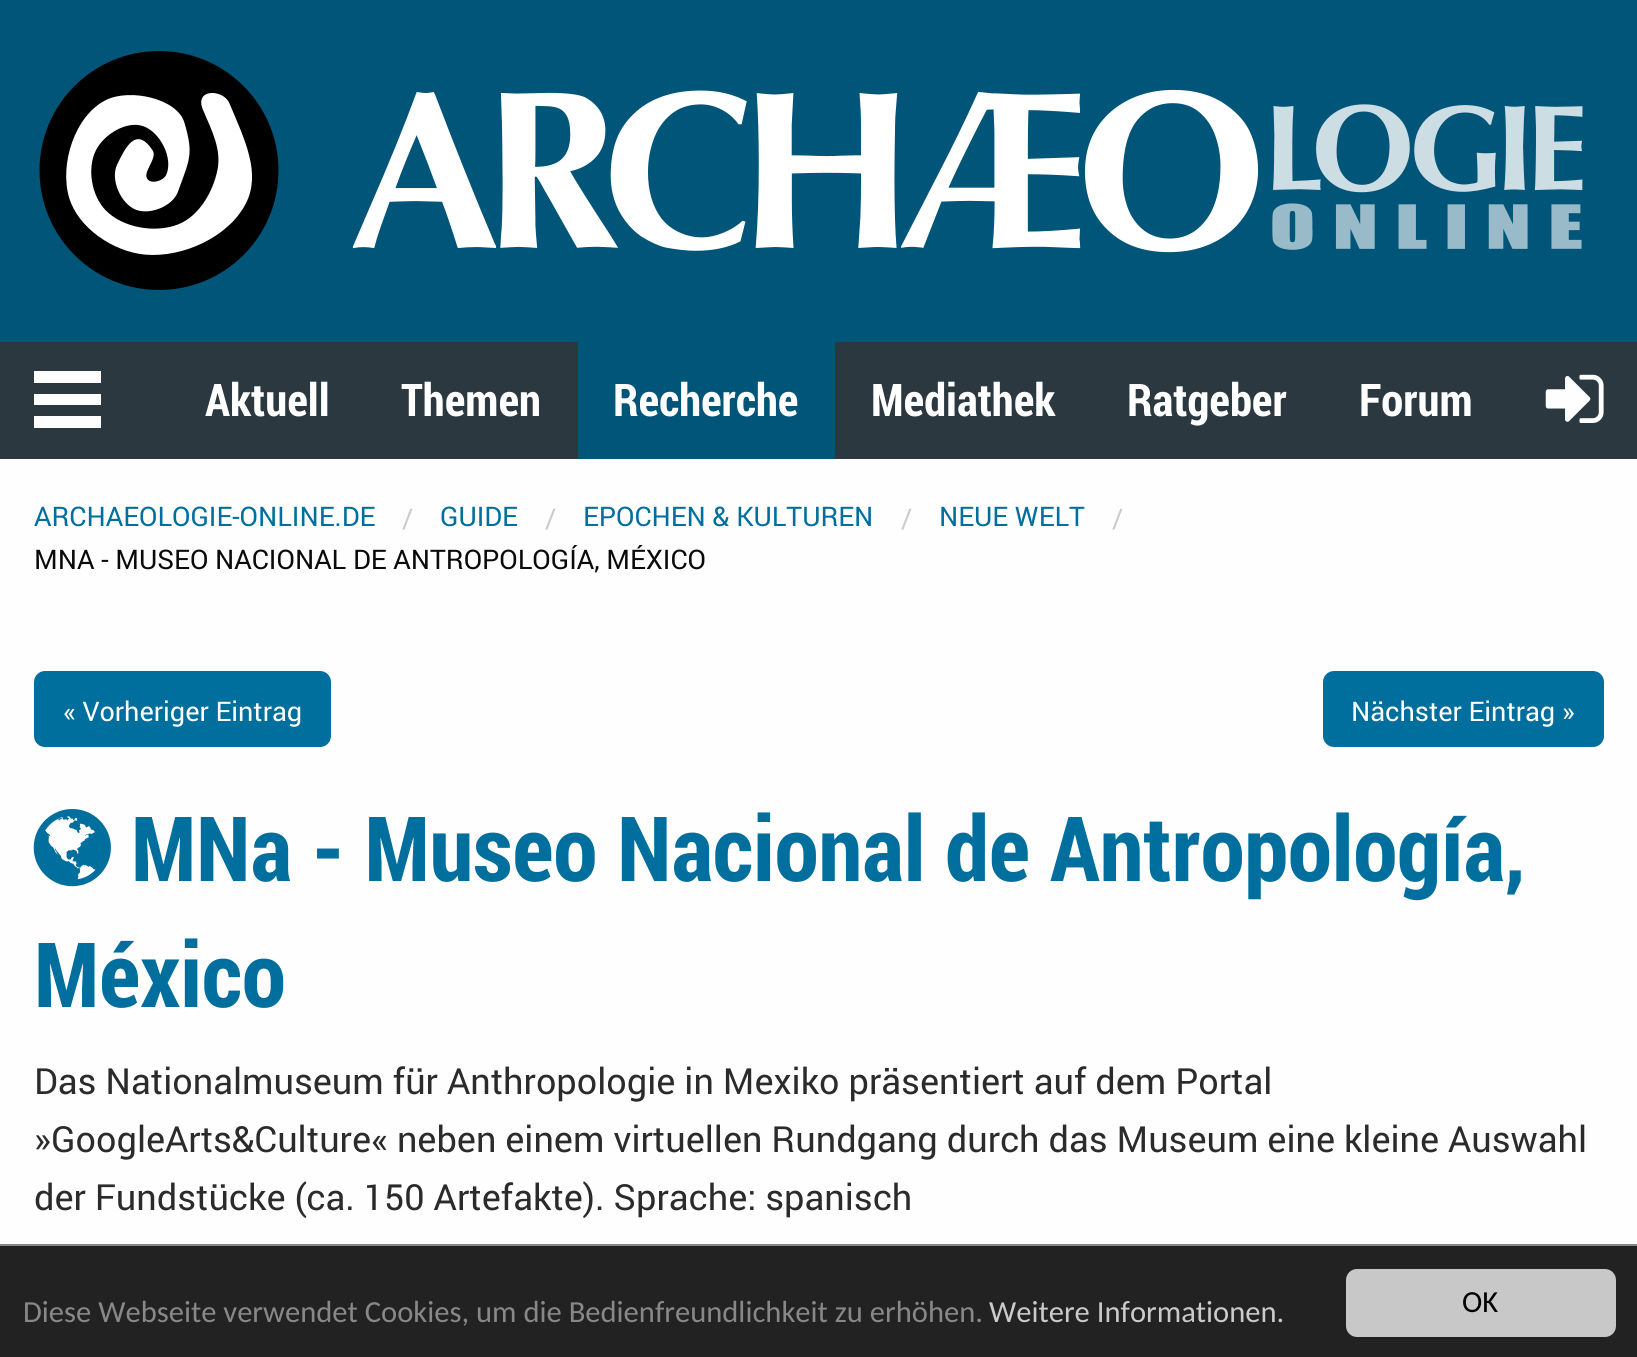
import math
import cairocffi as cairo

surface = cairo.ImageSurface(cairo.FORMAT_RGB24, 1637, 1357)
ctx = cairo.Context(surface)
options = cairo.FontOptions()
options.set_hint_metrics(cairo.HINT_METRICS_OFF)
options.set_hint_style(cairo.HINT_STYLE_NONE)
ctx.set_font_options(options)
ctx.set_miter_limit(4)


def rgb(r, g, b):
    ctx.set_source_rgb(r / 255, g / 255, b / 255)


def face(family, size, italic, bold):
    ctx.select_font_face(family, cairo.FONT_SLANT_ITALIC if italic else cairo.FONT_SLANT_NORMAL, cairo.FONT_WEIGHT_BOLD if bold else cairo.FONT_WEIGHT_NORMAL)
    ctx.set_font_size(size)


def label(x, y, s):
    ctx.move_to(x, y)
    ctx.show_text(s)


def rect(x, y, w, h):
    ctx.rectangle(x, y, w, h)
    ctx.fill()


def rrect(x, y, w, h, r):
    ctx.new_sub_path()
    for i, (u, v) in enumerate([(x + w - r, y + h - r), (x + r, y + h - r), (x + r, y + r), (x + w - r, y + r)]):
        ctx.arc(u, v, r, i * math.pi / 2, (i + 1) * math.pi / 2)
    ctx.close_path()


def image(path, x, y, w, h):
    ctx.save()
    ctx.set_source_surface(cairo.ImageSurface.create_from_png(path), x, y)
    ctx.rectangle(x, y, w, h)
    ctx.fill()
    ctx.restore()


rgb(44, 56, 64)
ctx.paint()
rgb(0, 85, 120)
rect(0, 0, 1637, 342)
image('image0.png', 39, 51, 1544, 239)
rgb(254, 254, 254)
rect(34, 416, 67, 12)
rect(34, 394, 67, 11)
rect(34, 371, 67, 12)
face('Roboto Condensed', 45, 0, 1)
label(205, 416, 'Aktuell')
label(401, 416, 'Themen')
rgb(0, 85, 120)
rect(578, 342, 257, 117)
rgb(254, 254, 254)
label(613, 416, 'Recherche')
label(871, 416, 'Mediathek')
label(1127, 416, 'Ratgeber')
label(1359, 416, 'Forum')
image('image1.png', 1545, 374, 59, 49)
rect(0, 459, 1637, 785)
face('Roboto', 27, 0, 0)
rgb(0, 111, 158)
label(34, 526, 'ARCHAEOLOGIE-ONLINE.DE')
rgb(202, 202, 202)
label(402, 528, '/')
rgb(0, 111, 158)
label(440, 526, 'GUIDE')
rgb(202, 202, 202)
label(545, 528, '/')
rgb(0, 111, 158)
label(583, 526, 'EPOCHEN & KULTUREN')
rgb(202, 202, 202)
label(901, 528, '/')
rgb(0, 111, 158)
label(939, 526, 'NEUE WELT')
rgb(202, 202, 202)
label(1112, 528, '/')
rgb(10, 10, 10)
label(34, 569, 'MNA - MUSEO NACIONAL DE ANTROPOLOGÍA, MÉXICO')
rgb(0, 111, 158)
rrect(34, 671, 297, 76, 11)
ctx.fill()
rgb(254, 254, 254)
label(63, 721, '« Vorheriger Eintrag')
rgb(0, 111, 158)
rrect(1323, 671, 281, 76, 11)
ctx.fill()
rgb(254, 254, 254)
label(1351, 721, 'Nächster Eintrag »')
image('image2.png', 33, 809, 78, 78)
face('Roboto Condensed', 90, 0, 1)
rgb(0, 111, 158)
label(131, 881, 'MNa - Museo Nacional de Antropología,')
label(34, 1007, 'México')
face('Roboto', 36, 0, 0)
rgb(43, 43, 43)
label(34, 1094, 'Das Nationalmuseum für Anthropologie in Mexiko präsentiert auf dem Portal')
label(34, 1152, '»GoogleArts&Culture« neben einem virtuellen Rundgang durch das Museum eine kleine Auswahl')
label(34, 1210, 'der Fundstücke (ca. 150 Artefakte). Sprache: spanisch')
rgb(34, 34, 34)
rect(0, 1246, 1637, 111)
rgb(136, 136, 136)
rect(0, 1244, 1637, 2)
face('Carlito', 30.6, 0, 0)
label(23, 1322, 'Diese Webseite verwendet Cookies, um die Bedienfreundlichkeit zu erhöhen.')
rgb(202, 202, 202)
label(989, 1322, 'Weitere Informationen.')
rgb(200, 200, 200)
rrect(1346, 1269, 270, 68, 11)
ctx.fill()
rgb(0, 0, 0)
label(1462, 1312, 'OK')
surface.write_to_png('render.png')
